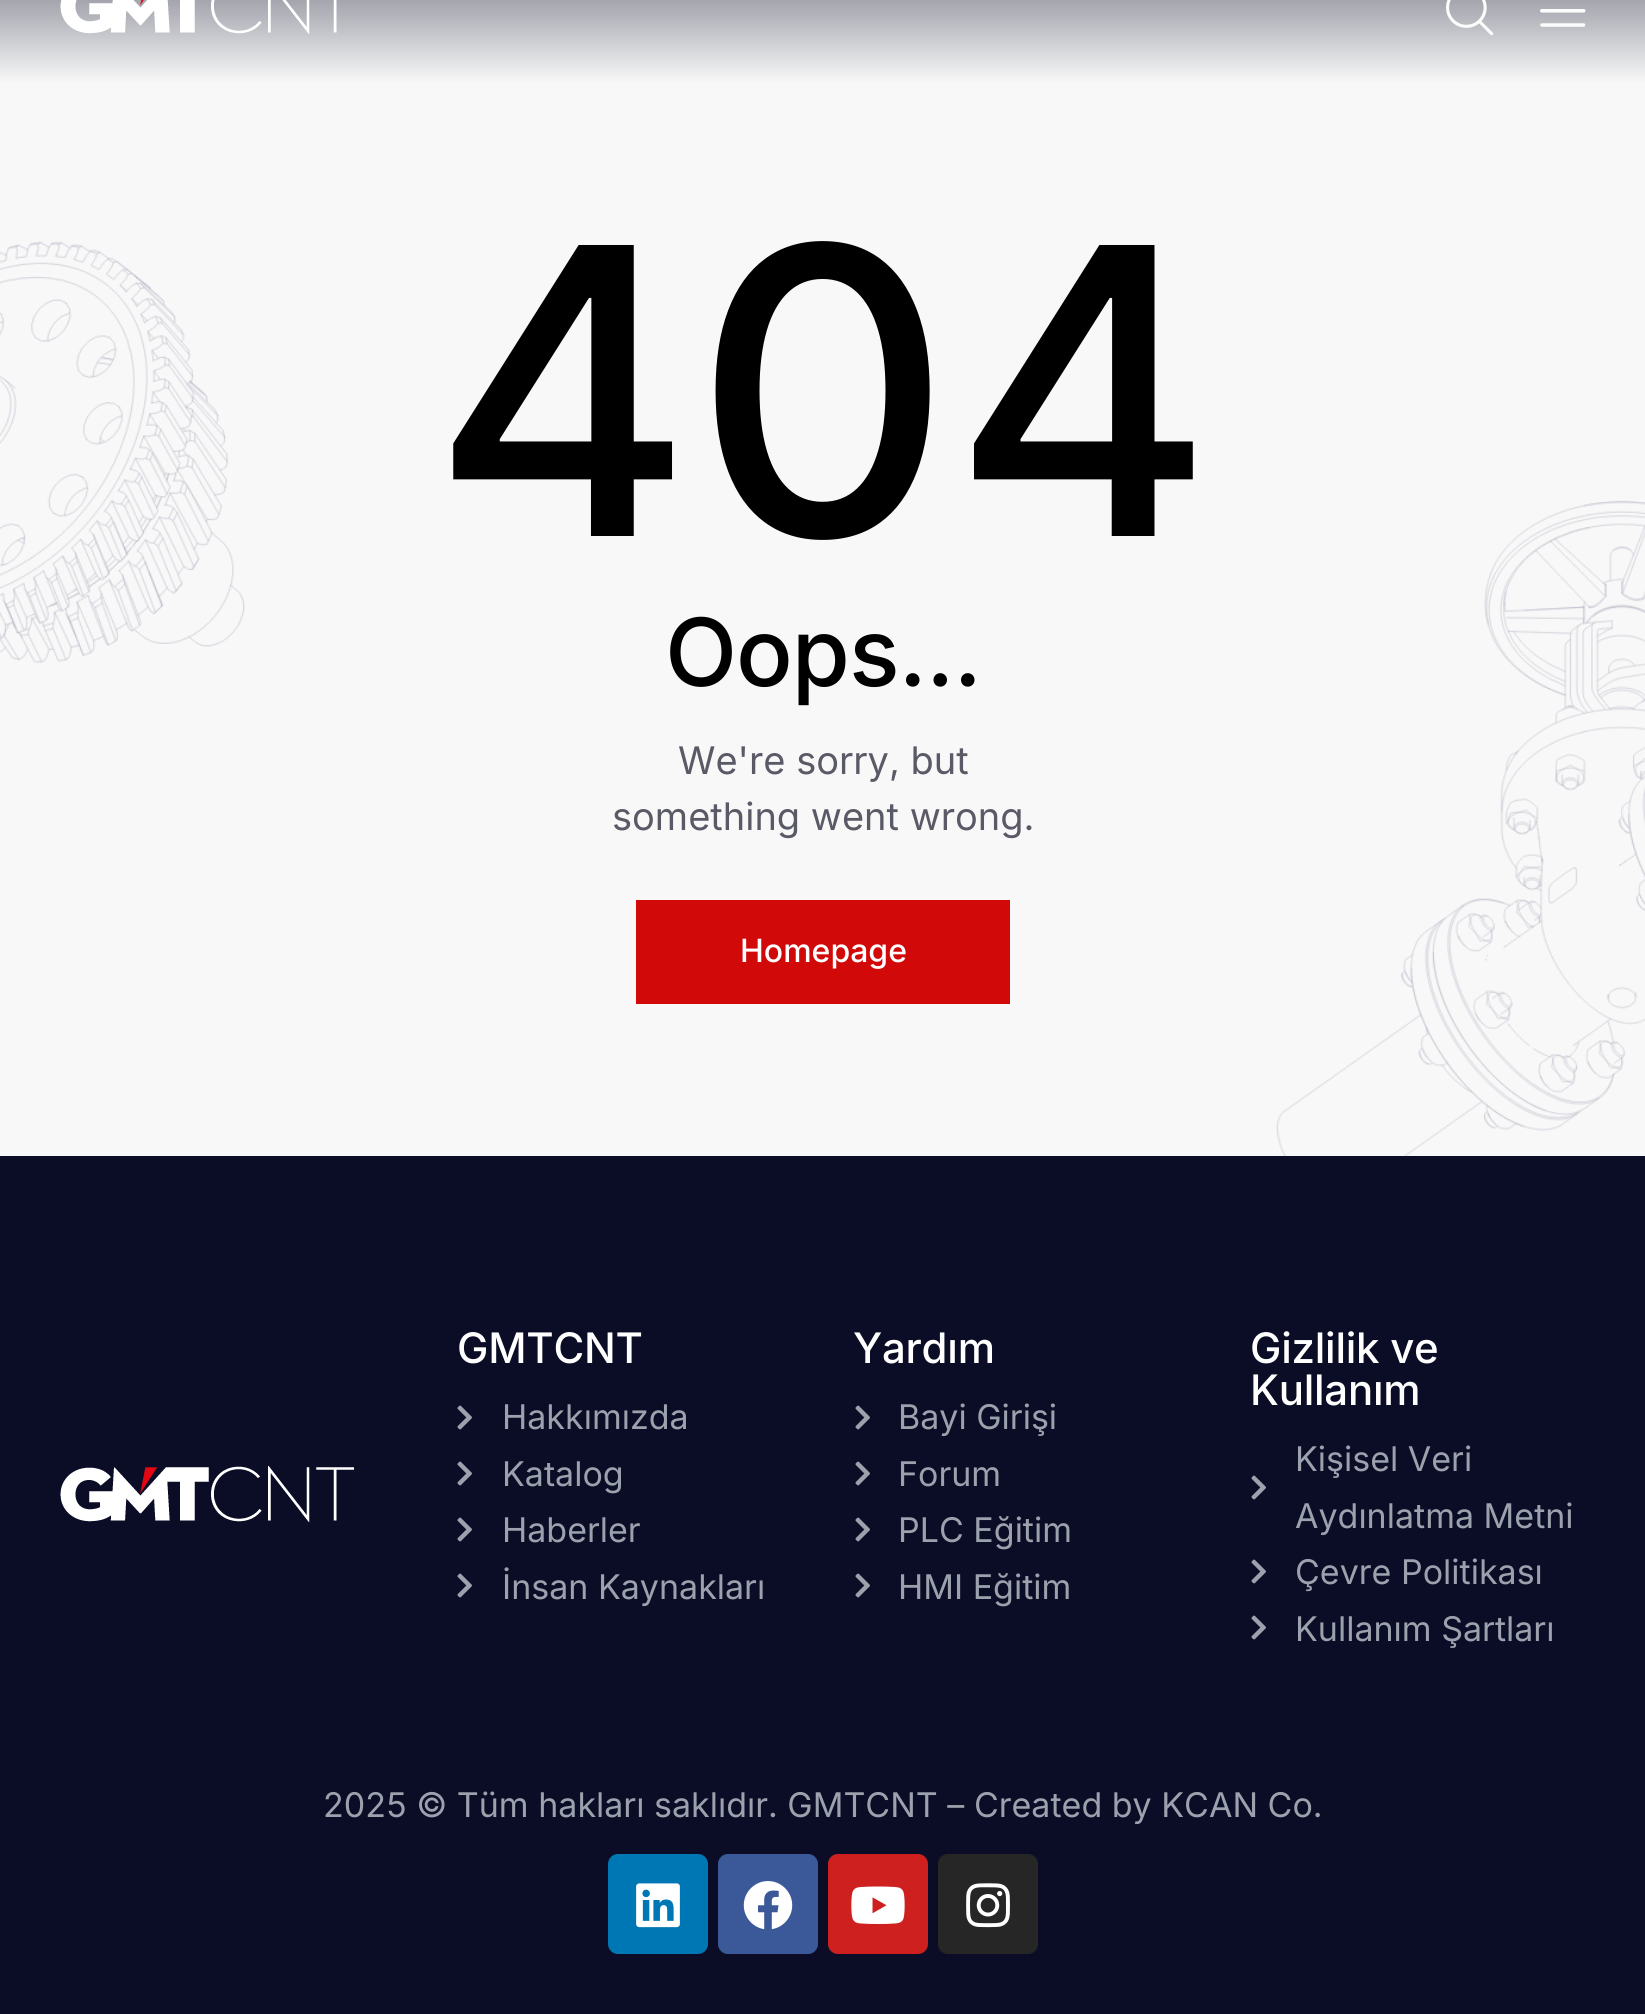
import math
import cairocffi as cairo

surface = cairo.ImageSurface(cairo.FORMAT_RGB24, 1645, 2014)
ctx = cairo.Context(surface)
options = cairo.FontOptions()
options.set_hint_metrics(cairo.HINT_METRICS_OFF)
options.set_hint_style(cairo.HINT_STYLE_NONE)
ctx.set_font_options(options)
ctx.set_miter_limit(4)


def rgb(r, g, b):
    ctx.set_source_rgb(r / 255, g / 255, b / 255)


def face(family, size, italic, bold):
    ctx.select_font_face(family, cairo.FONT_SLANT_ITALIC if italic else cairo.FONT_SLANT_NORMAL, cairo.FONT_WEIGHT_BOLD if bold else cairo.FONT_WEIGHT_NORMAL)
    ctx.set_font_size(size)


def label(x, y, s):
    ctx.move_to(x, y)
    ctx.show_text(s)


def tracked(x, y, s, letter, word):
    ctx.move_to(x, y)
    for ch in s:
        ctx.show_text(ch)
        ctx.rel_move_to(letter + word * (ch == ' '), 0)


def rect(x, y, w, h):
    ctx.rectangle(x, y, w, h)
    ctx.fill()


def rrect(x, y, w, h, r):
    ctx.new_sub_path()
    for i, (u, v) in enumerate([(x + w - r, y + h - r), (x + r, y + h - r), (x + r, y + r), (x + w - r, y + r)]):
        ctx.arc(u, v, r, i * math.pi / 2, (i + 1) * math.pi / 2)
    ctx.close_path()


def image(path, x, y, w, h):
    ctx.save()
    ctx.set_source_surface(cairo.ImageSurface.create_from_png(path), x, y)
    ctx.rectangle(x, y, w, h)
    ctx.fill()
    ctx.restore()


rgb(248, 248, 248)
ctx.paint()
gradient = cairo.LinearGradient(823, -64, 823, 84)
gradient.add_color_stop_rgba(0, 0.388, 0.392, 0.455, 1)
gradient.add_color_stop_rgba(1, 0.973, 0.973, 0.973, 1)
ctx.set_source(gradient)
rect(0, 0, 1645, 82)
image('image0.png', 60, 0, 277, 34)
image('image1.png', 1446, 0, 48, 36)
image('image2.png', 1540, 9, 46, 18)
image('image3.png', 0, 241, 1645, 915)
face('Inter Medium', 400, 0, 0)
rgb(0, 0, 0)
label(431, 536, '404')
face('Inter Medium', 94, 0, 0)
tracked(665, 686, 'Oops...', -1, 0)
face('Inter', 38, 0, 0)
rgb(90, 90, 103)
label(678, 774, 'We\'re sorry, but')
label(612, 830, 'something went wrong.')
rgb(209, 9, 9)
rect(636, 900, 374, 104)
face('Inter Medium', 32, 0, 0)
rgb(255, 255, 255)
label(740, 962, 'Homepage')
rgb(11, 13, 38)
rect(0, 1156, 1645, 858)
image('image4.png', 60, 1466, 294, 56)
face('Inter Medium', 42, 0, 0)
rgb(255, 255, 255)
tracked(457, 1363, 'GMTCNT', -0.25, 0)
image('image5.png', 457, 1405, 15, 25)
face('Inter', 34, 0, 0)
rgb(155, 162, 173)
label(502, 1429, 'Hakkımızda')
image('image5.png', 457, 1461, 15, 25)
label(502, 1486, 'Katalog')
image('image5.png', 457, 1517, 15, 25)
label(502, 1542, 'Haberler')
image('image5.png', 457, 1573, 15, 25)
label(502, 1599, 'İnsan Kaynakları')
face('Inter Medium', 42, 0, 0)
rgb(255, 255, 255)
tracked(853, 1363, 'Yardım', -0.25, 0)
image('image5.png', 855, 1405, 15, 25)
face('Inter', 34, 0, 0)
rgb(155, 162, 173)
label(898, 1429, 'Bayi Girişi')
image('image5.png', 855, 1461, 15, 25)
label(898, 1486, 'Forum')
image('image5.png', 855, 1517, 15, 25)
label(898, 1542, 'PLC Eğitim')
image('image5.png', 855, 1573, 15, 25)
label(898, 1599, 'HMI Eğitim')
face('Inter Medium', 42, 0, 0)
rgb(255, 255, 255)
tracked(1250, 1363, 'Gizlilik ve', -0.25, 0)
tracked(1250, 1405, 'Kullanım', -0.25, 0)
image('image5.png', 1251, 1475, 15, 25)
face('Inter', 34, 0, 0)
rgb(155, 162, 173)
label(1295, 1471, 'Kişisel Veri')
label(1295, 1528, 'Aydınlatma Metni')
image('image5.png', 1251, 1559, 15, 25)
label(1295, 1584, 'Çevre Politikası')
image('image5.png', 1251, 1615, 15, 25)
label(1295, 1641, 'Kullanım Şartları')
label(323, 1817, '2025 © Tüm hakları saklıdır. GMTCNT – Created by KCAN Co.')
rgb(0, 119, 181)
rrect(608, 1854, 100, 100, 10)
ctx.fill()
image('image6.png', 636, 1883, 44, 45)
rgb(59, 89, 152)
rrect(718, 1854, 100, 100, 10)
ctx.fill()
image('image7.png', 743, 1881, 50, 49)
rgb(205, 32, 31)
rrect(828, 1854, 100, 100, 10)
ctx.fill()
image('image8.png', 851, 1886, 54, 38)
rgb(38, 38, 38)
rrect(938, 1854, 100, 100, 10)
ctx.fill()
image('image9.png', 966, 1883, 44, 45)
surface.write_to_png('render.png')
